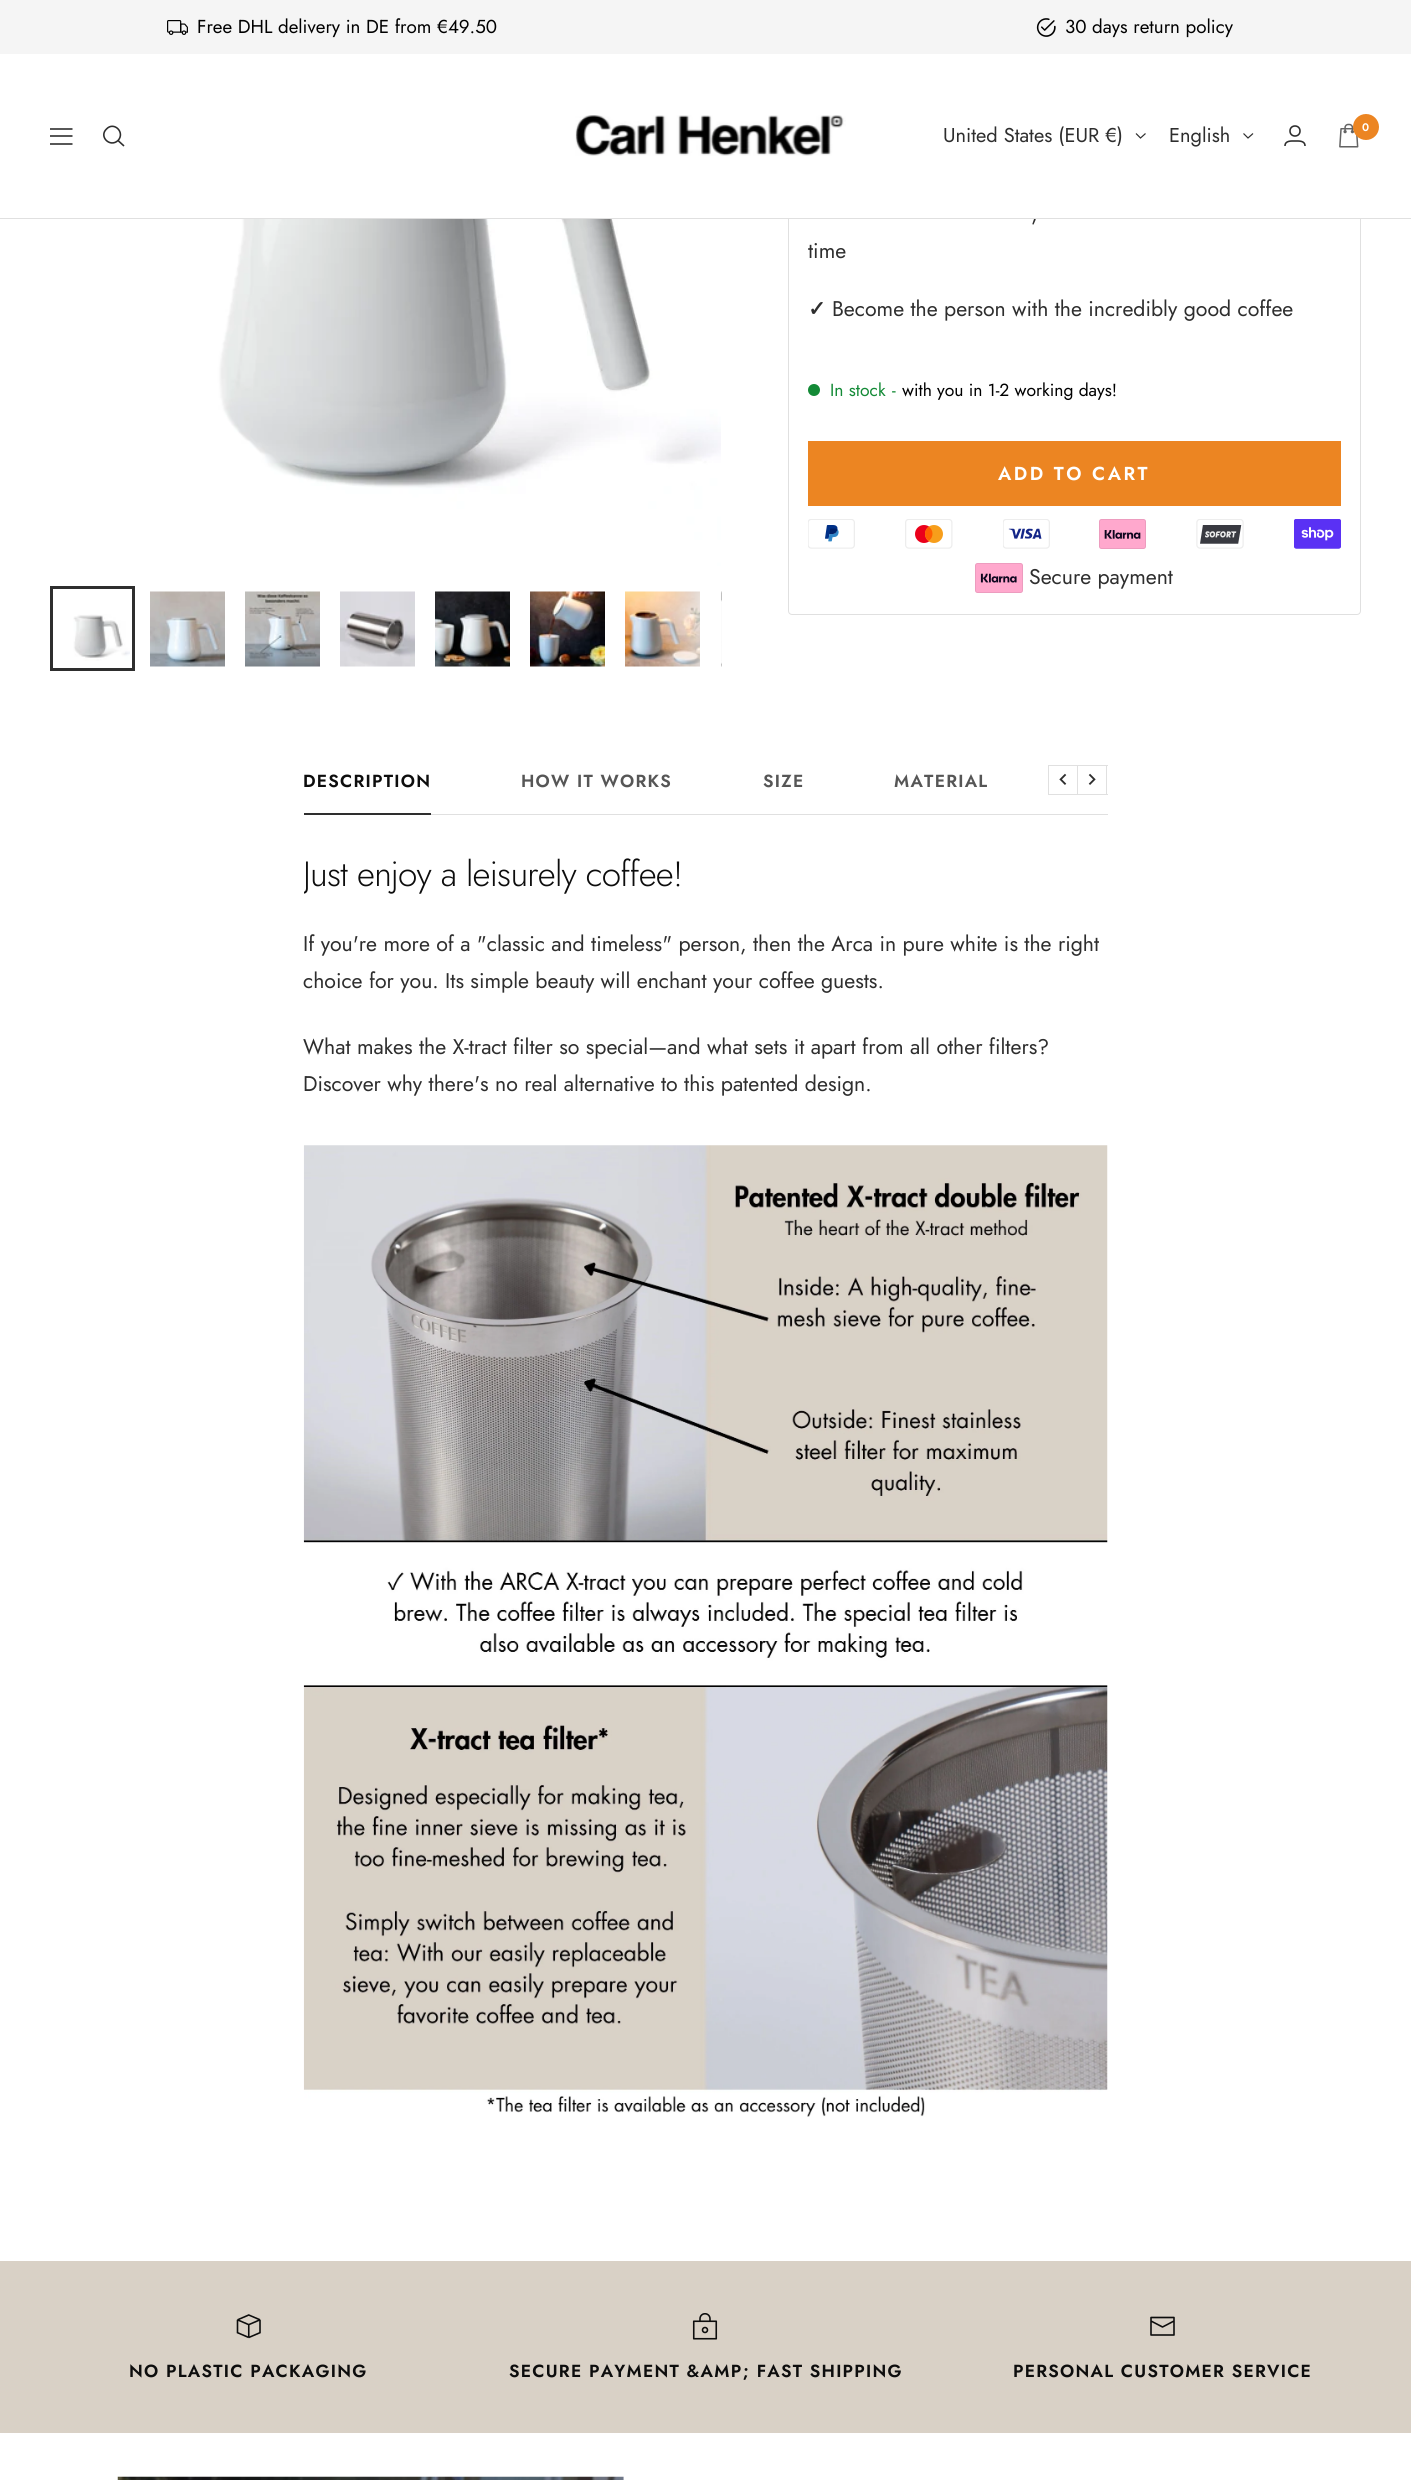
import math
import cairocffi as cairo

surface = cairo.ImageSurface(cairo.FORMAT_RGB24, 1411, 2480)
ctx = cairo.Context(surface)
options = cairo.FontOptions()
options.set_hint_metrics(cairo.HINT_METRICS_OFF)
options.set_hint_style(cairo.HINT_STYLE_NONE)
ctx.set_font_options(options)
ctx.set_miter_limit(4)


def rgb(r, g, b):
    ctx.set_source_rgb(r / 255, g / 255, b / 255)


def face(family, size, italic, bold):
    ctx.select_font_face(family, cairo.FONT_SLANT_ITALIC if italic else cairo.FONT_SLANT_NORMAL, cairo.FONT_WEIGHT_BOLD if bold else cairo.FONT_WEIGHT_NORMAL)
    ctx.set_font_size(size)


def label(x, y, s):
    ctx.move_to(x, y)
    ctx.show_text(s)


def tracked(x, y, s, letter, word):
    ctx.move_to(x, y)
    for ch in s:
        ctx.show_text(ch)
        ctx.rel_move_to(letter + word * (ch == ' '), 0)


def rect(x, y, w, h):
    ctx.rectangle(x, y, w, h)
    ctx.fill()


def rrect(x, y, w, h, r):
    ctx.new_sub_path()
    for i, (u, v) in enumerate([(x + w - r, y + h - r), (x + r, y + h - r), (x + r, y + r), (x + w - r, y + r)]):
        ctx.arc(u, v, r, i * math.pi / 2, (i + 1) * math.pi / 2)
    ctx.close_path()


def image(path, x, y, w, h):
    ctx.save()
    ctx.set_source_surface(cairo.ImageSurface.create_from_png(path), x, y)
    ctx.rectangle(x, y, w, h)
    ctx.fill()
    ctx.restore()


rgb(255, 255, 255)
ctx.paint()
rrect(788.5, -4.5, 572, 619, 3.5)
rgb(224, 224, 224)
ctx.set_line_width(1)
ctx.stroke()
rgb(245, 245, 245)
rect(0, 0, 1411, 54)
image('image0.png', 167, 20, 21, 15)
face('Jost', 18.75, 0, 0)
rgb(0, 0, 0)
label(197, 33, 'Free DHL delivery in DE from €49.50')
image('image1.png', 1036, 18, 20, 19)
label(1065, 33, '30 days return policy')
face('Jost', 21.25, 0, 0)
rgb(46, 46, 46)
label(1031, 221, ',')
rgb(224, 224, 224)
rect(0, 218, 1411, 1)
rgb(255, 255, 255)
rect(788, 54, 573, 164)
ctx.new_path()
ctx.move_to(50, 129)
ctx.line_to(72.5, 129)
ctx.move_to(50, 144)
ctx.line_to(72.5, 144)
ctx.close_path()
ctx.move_to(50, 136)
ctx.line_to(72.5, 136)
ctx.close_path()
rgb(46, 46, 46)
ctx.set_line_width(1.6)
ctx.stroke()
ctx.new_path()
ctx.move_to(118, 140.5)
ctx.curve_to(125.5, 132.5, 114, 121, 106.5, 129)
ctx.curve_to(98.5, 136.5, 110, 148, 118, 140.5)
ctx.close_path()
ctx.move_to(118, 140.5)
ctx.line_to(124, 146)
ctx.stroke()
image('image2.png', 575, 115, 271, 41)
face('Jost', 20, 0, 0)
label(943, 142, 'United States (EUR €)')
ctx.new_path()
ctx.move_to(1136, 133.5)
ctx.line_to(1140.5, 138)
ctx.line_to(1145.5, 133.5)
ctx.set_line_width(1.2)
ctx.stroke()
label(1169, 142, 'English')
ctx.new_path()
ctx.move_to(1243.5, 133.5)
ctx.line_to(1248, 138)
ctx.line_to(1253, 133.5)
ctx.stroke()
ctx.arc(1295, 131, 5, 0, 2 * math.pi)
ctx.set_line_width(1.6)
ctx.stroke()
ctx.new_path()
ctx.move_to(1285, 146)
ctx.curve_to(1285, 140.5, 1291, 141, 1295, 141)
ctx.curve_to(1299, 141, 1305, 140.5, 1305, 146)
ctx.stroke()
image('image3.png', 1339, 123, 20, 25)
rgb(236, 133, 34)
ctx.arc(1366, 127, 13, 0, 2 * math.pi)
ctx.fill()
face('Jost SemiBold', 11, 0, 0)
rgb(255, 255, 255)
label(1362, 131, '0')
image('image4.png', 50, 219, 671, 347)
image('image5.png', 73, 614, 57, 47)
ctx.rectangle(51.5, 587.5, 82, 82)
rgb(46, 46, 46)
ctx.set_line_width(3)
ctx.stroke()
image('image6.png', 150, 591, 75, 76)
image('image7.png', 245, 591, 75, 76)
image('image8.png', 340, 591, 75, 76)
image('image9.png', 435, 591, 75, 76)
image('image10.png', 530, 591, 75, 76)
image('image11.png', 625, 591, 75, 76)
image('image12.png', 720, 591, 2, 76)
gradient = cairo.LinearGradient(721, 629, 643, 629)
gradient.add_color_stop_rgba(0, 1, 1, 1, 1)
gradient.add_color_stop_rgba(1, 1, 1, 1, 0)
ctx.set_source(gradient)
rect(645, 591, 76, 76)
face('Jost', 21.25, 0, 0)
rgb(46, 46, 46)
label(808, 258, 'time')
face('DejaVu Sans', 21.25, 0, 1)
label(808, 316, '✓')
face('Jost', 21.25, 0, 0)
label(832, 316, 'Become the person with the incredibly good coffee')
rgb(19, 138, 54)
ctx.new_path()
ctx.arc(814, 390, 6, 0, 2 * math.pi)
ctx.fill()
face('Jost', 17.5, 0, 0)
label(830, 396, 'In stock')
label(892, 396, '-')
rgb(0, 0, 0)
label(902, 396, 'with you in 1-2 working days!')
rgb(236, 133, 34)
rect(808, 441, 533, 65)
face('Jost SemiBold', 18.75, 0, 0)
rgb(255, 255, 255)
tracked(998, 480, 'ADD TO CART', 2.5, 0)
image('image13.png', 808, 519, 47, 30)
image('image14.png', 905, 519, 48, 30)
image('image15.png', 1003, 519, 47, 30)
image('image16.png', 1099, 519, 47, 30)
image('image17.png', 1196, 519, 48, 30)
image('image18.png', 1294, 519, 47, 30)
image('image19.png', 975, 563, 48, 30)
face('Jost', 21.25, 0, 0)
rgb(46, 46, 46)
label(1029, 584, 'Secure payment')
rgb(224, 224, 224)
rect(431, 814, 677, 1)
face('Jost SemiBold', 17.5, 0, 0)
rgb(13, 13, 13)
tracked(303, 787, 'DESCRIPTION', 1.25, 0)
rgb(86, 86, 86)
tracked(521, 787, 'HOW IT WORKS', 1.25, 0)
tracked(763, 787, 'SIZE', 1.25, 0)
tracked(894, 787, 'MATERIAL', 1.25, 0)
rgb(46, 46, 46)
rect(304, 813, 127, 2)
ctx.rectangle(1048.5, 765.5, 29, 29)
rgb(224, 224, 224)
ctx.set_line_width(1)
ctx.stroke()
image('image20.png', 1059, 773, 8, 12)
rect(1078, 765, 30, 1)
rect(1106, 765, 1, 30)
rect(1078, 794, 30, 1)
image('image21.png', 1088, 773, 8, 12)
ctx.save()
ctx.rectangle(304, 855, 804, 1306)
ctx.clip()
face('Jost Light', 35, 0, 0)
rgb(13, 13, 13)
tracked(303, 886, 'Just enjoy a leisurely coffee!', -0.75, 0)
ctx.restore()
face('Jost', 21.25, 0, 0)
rgb(46, 46, 46)
label(303, 951, 'If you\'re more of a "classic and timeless" person, then the Arca in pure white is the right')
label(303, 988, 'choice for you. Its simple beauty will enchant your coffee guests.')
label(303, 1054, 'What makes the X-tract filter so special—and what sets it apart from all other filters?')
label(303, 1091, 'Discover why there\'s no real alternative to this patented design.')
image('image22.png', 303, 1145, 805, 972)
rgb(217, 209, 198)
rect(0, 2261, 1411, 172)
image('image23.png', 236, 2314, 25, 25)
face('Jost SemiBold', 17.5, 0, 0)
rgb(13, 13, 13)
tracked(129, 2377, 'NO PLASTIC PACKAGING', 1.25, 0)
image('image24.png', 692, 2313, 26, 27)
tracked(509, 2377, 'SECURE PAYMENT &AMP; FAST SHIPPING', 1.25, 0)
ctx.new_path()
ctx.move_to(1174, 2321)
ctx.line_to(1174, 2317.5)
ctx.line_to(1151, 2317.5)
ctx.line_to(1151, 2321)
ctx.move_to(1174, 2321)
ctx.line_to(1174, 2335)
ctx.line_to(1151, 2335)
ctx.line_to(1151, 2321)
ctx.move_to(1174, 2321)
ctx.line_to(1162.5, 2327)
ctx.line_to(1151, 2321)
ctx.set_line_width(1.6)
ctx.set_line_cap(cairo.LINE_CAP_ROUND)
ctx.set_line_join(cairo.LINE_JOIN_ROUND)
ctx.stroke()
tracked(1013, 2377, 'PERSONAL CUSTOMER SERVICE', 1.25, 0)
image('image25.png', 117, 2476, 507, 4)
surface.write_to_png('render.png')
